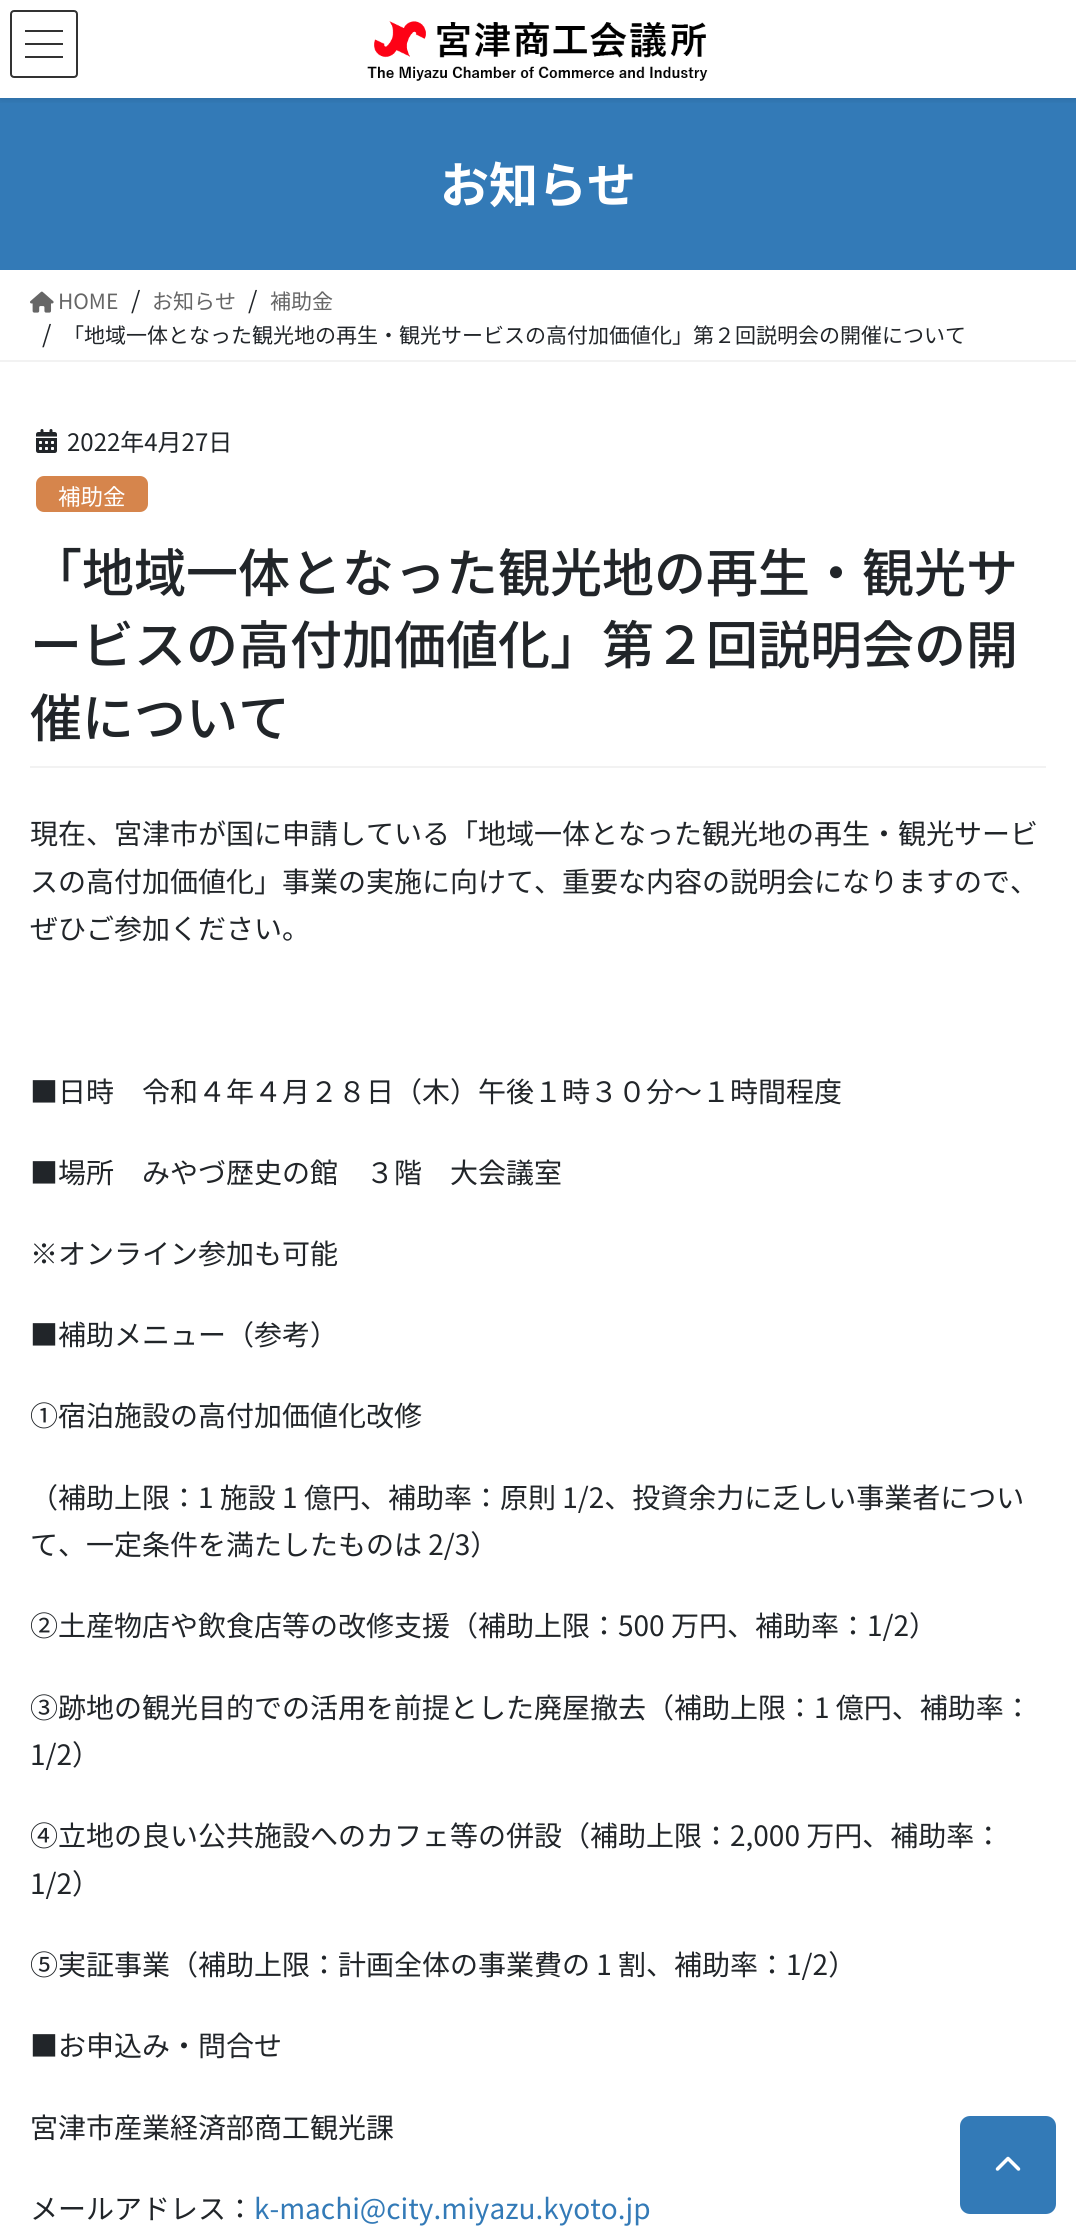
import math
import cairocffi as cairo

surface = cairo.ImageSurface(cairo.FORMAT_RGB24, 1076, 2233)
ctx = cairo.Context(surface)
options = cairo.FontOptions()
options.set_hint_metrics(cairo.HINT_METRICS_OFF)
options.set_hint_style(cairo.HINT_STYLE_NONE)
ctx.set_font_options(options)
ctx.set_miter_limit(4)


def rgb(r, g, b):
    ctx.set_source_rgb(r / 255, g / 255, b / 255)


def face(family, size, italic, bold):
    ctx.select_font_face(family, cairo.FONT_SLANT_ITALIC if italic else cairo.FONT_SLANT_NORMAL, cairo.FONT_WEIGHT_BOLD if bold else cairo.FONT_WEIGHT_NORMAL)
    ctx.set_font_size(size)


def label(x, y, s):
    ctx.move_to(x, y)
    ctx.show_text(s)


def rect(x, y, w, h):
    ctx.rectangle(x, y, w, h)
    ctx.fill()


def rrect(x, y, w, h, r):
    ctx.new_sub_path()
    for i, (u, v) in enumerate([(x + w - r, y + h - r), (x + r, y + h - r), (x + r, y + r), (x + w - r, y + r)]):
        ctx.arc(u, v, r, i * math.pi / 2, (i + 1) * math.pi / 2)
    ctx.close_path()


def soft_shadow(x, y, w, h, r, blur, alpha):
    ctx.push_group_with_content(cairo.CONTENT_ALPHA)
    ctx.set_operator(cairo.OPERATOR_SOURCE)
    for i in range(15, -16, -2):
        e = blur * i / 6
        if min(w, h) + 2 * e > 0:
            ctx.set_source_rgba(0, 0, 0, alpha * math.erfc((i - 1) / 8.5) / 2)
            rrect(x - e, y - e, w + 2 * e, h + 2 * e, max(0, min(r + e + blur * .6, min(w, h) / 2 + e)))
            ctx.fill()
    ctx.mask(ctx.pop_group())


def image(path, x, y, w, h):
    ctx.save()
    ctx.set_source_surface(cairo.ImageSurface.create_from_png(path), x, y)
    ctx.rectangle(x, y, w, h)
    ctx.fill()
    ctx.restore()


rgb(255, 255, 255)
ctx.paint()
rgb(51, 122, 183)
rect(0, 98, 1076, 172)
ctx.save()
ctx.rectangle(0, 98, 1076, 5)
ctx.clip()
rgb(0, 0, 0)
soft_shadow(0, 2, 1076, 98, 0, 3, 0.1)
ctx.restore()
image('image0.png', 367, 21, 341, 60)
rgb(51, 51, 51)
rect(25, 30, 38, 2)
rect(25, 43, 38, 2)
rect(25, 56, 38, 2)
rrect(11, 11, 66, 66, 3)
ctx.stroke()
face('Noto Sans CJK JP', 49, 0, 1)
rgb(255, 255, 255)
label(440, 203, 'お知らせ')
rgb(242, 242, 242)
rect(0, 360, 1076, 2)
image('image1.png', 30, 291, 24, 22)
face('Noto Sans CJK JP', 21, 0, 0)
rgb(102, 102, 102)
label(58, 309, 'HOME')
face('Noto Sans CJK JP', 24, 0, 0)
rgb(33, 37, 41)
label(131, 309, '/')
face('Noto Sans CJK JP', 21, 0, 0)
rgb(102, 102, 102)
label(152, 309, 'お知らせ')
face('Noto Sans CJK JP', 24, 0, 0)
rgb(33, 37, 41)
label(248, 309, '/')
face('Noto Sans CJK JP', 21, 0, 0)
rgb(102, 102, 102)
label(270, 309, '補助金')
face('Noto Sans CJK JP', 24, 0, 0)
rgb(33, 37, 41)
label(42, 343, '/')
face('Noto Sans CJK JP', 21, 0, 0)
label(63, 343, '「地域一体となった観光地の再生・観光サービスの高付加価値化」第２回説明会の開催について')
rgb(242, 242, 242)
rect(30, 766, 1016, 2)
image('image2.png', 36, 429, 21, 24)
face('Noto Sans CJK JP', 24, 0, 0)
rgb(33, 37, 41)
label(67, 451, '2022年4月27日')
rgb(214, 133, 76)
rrect(36, 476, 112, 36, 8)
ctx.fill()
face('Noto Sans CJK JP', 22.5, 0, 0)
rgb(255, 255, 255)
label(58, 505, '補助金')
face('Noto Sans CJK JP Medium', 52, 0, 0)
rgb(33, 37, 41)
label(30, 592, '「地域一体となった観光地の再生・観光サ')
label(30, 664, 'ービスの高付加価値化」第２回説明会の開')
label(30, 737, '催について')
face('Noto Sans CJK JP', 28, 0, 0)
label(30, 844, '現在、宮津市が国に申請している「地域一体となった観光地の再生・観光サービ')
label(30, 892, 'スの高付加価値化」事業の実施に向けて、重要な内容の説明会になりますので、')
label(30, 939, 'ぜひご参加ください。')
label(30, 1102, '■日時　令和４年４月２８日（木）午後１時３０分～１時間程度')
label(30, 1183, '■場所　みやづ歴史の館　３階　大会議室')
label(30, 1264, '※オンライン参加も可能')
label(30, 1345, '■補助メニュー（参考）')
label(30, 1426, '①宿泊施設の高付加価値化改修')
label(30, 1508, '（補助上限：1 施設 1 億円、補助率：原則 1/2、投資余力に乏しい事業者につい')
label(30, 1555, 'て、一定条件を満たしたものは 2/3）')
label(30, 1636, '②土産物店や飲食店等の改修支援（補助上限：500 万円、補助率：1/2）')
label(30, 1718, '③跡地の観光目的での活用を前提とした廃屋撤去（補助上限：1 億円、補助率：')
label(30, 1765, '1/2）')
label(30, 1846, '④立地の良い公共施設へのカフェ等の併設（補助上限：2,000 万円、補助率：')
label(30, 1894, '1/2）')
label(30, 1975, '⑤実証事業（補助上限：計画全体の事業費の 1 割、補助率：1/2）')
label(30, 2056, '■お申込み・問合せ')
label(30, 2138, '宮津市産業経済部商工観光課')
label(30, 2219, 'メールアドレス：')
rgb(51, 122, 183)
label(254, 2219, 'k-machi@city.miyazu.kyoto.jp')
rrect(962, 2118, 92, 94, 8)
ctx.fill_preserve()
ctx.set_line_width(4)
ctx.stroke()
image('image3.png', 995, 2156, 26, 15)
surface.write_to_png('render.png')
